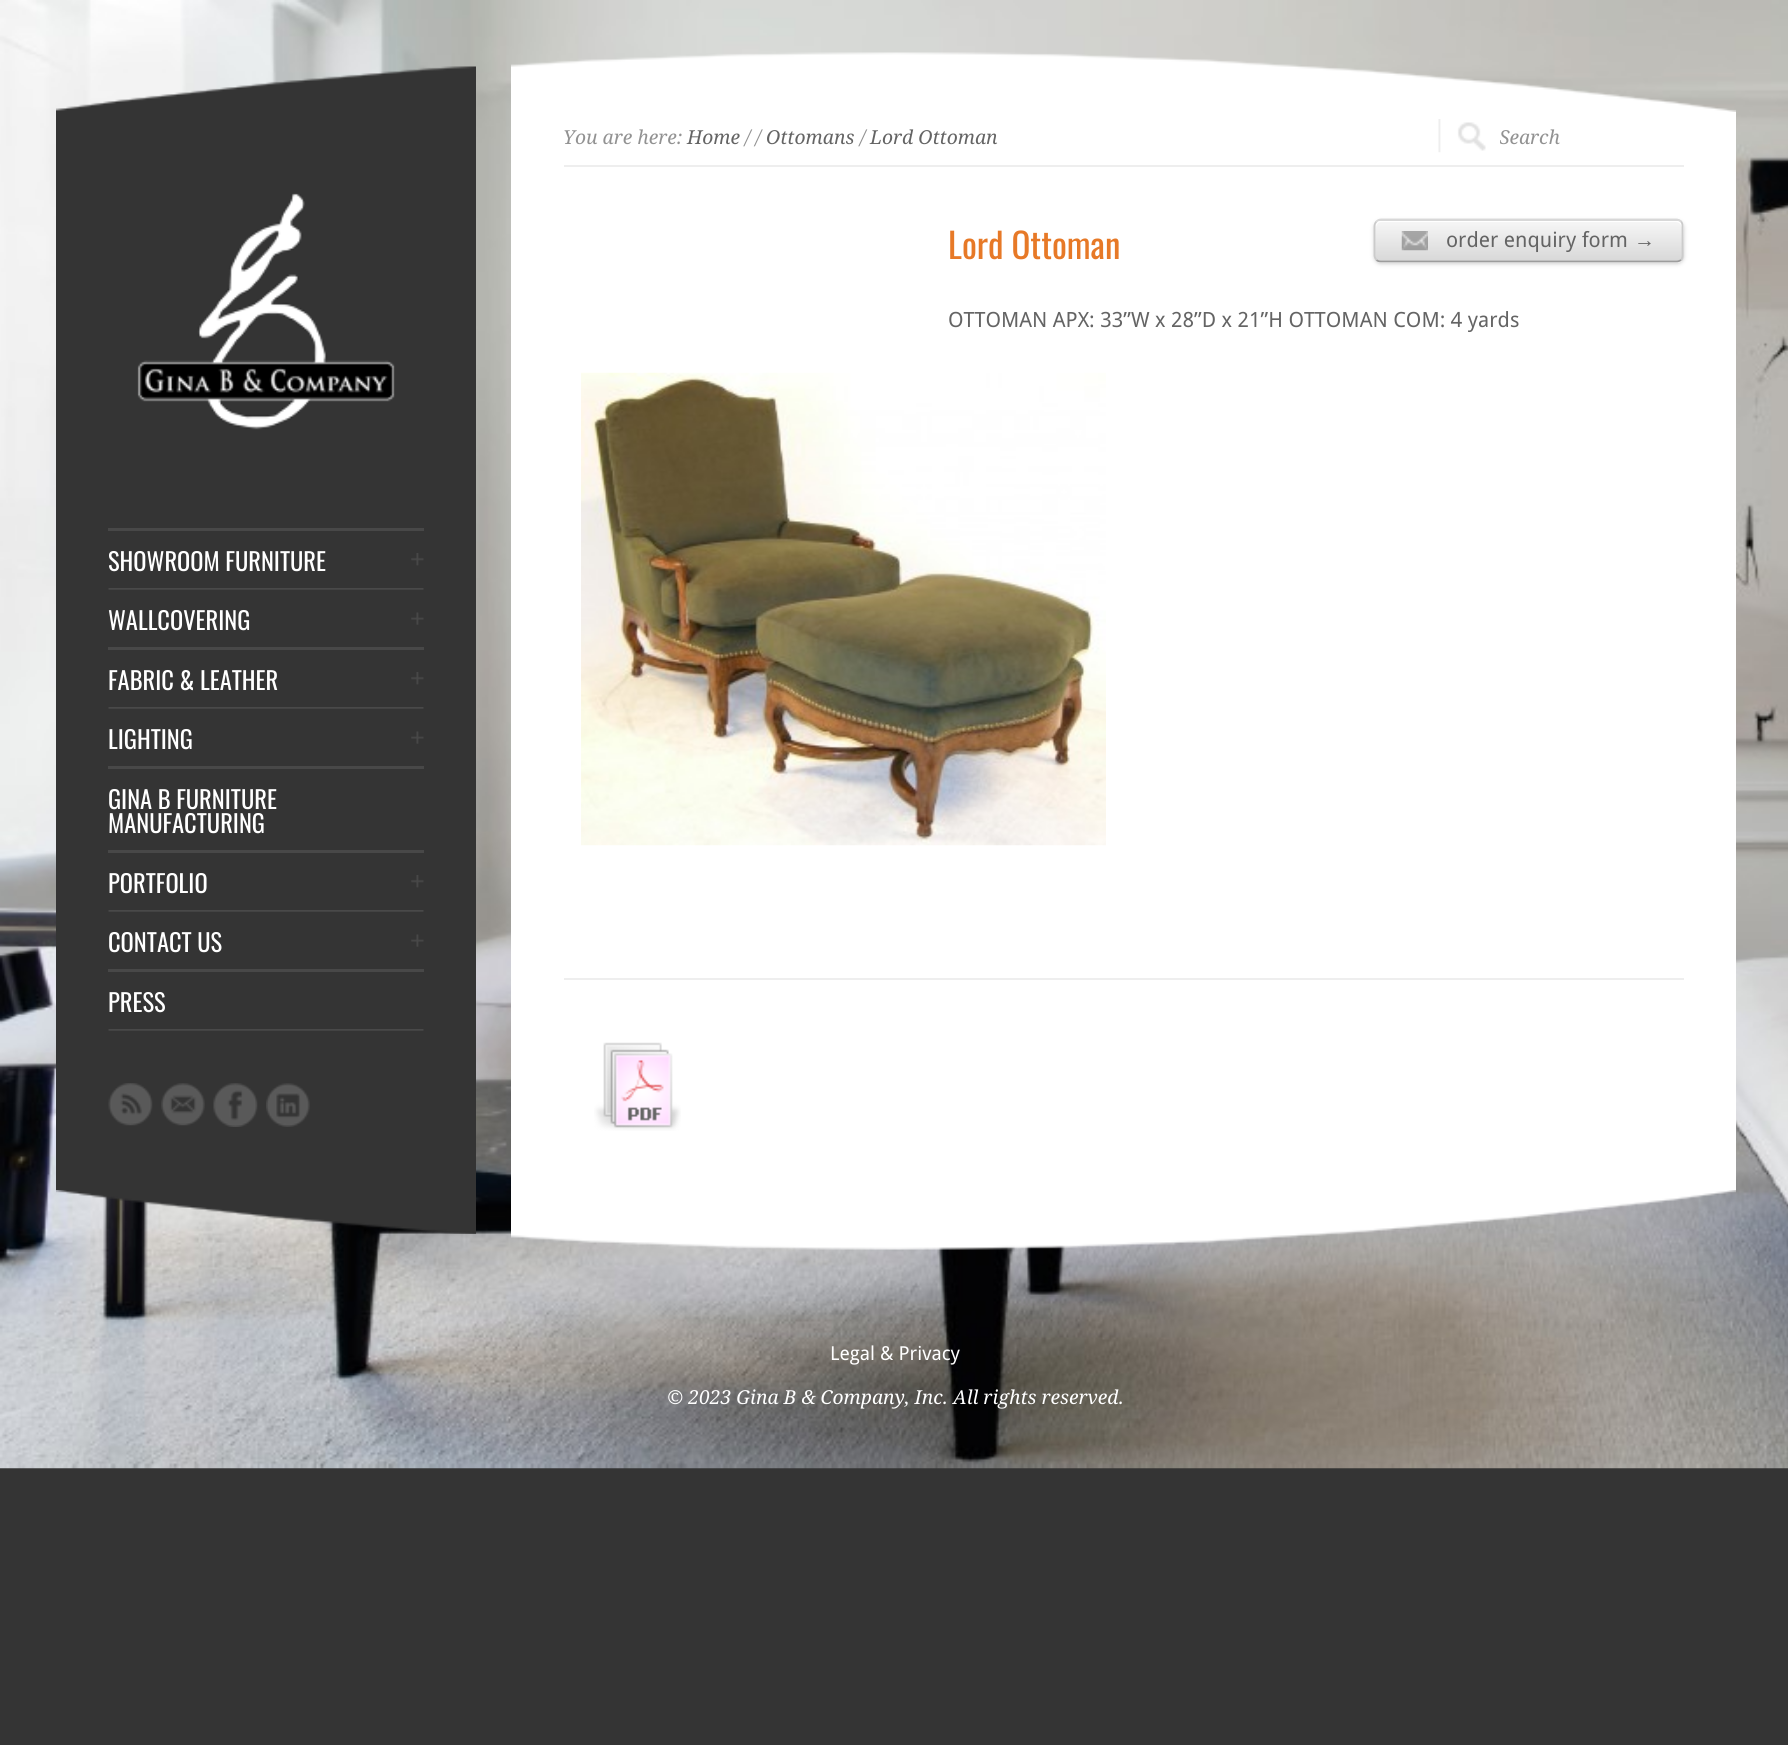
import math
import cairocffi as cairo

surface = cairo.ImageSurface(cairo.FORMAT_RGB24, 1788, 1745)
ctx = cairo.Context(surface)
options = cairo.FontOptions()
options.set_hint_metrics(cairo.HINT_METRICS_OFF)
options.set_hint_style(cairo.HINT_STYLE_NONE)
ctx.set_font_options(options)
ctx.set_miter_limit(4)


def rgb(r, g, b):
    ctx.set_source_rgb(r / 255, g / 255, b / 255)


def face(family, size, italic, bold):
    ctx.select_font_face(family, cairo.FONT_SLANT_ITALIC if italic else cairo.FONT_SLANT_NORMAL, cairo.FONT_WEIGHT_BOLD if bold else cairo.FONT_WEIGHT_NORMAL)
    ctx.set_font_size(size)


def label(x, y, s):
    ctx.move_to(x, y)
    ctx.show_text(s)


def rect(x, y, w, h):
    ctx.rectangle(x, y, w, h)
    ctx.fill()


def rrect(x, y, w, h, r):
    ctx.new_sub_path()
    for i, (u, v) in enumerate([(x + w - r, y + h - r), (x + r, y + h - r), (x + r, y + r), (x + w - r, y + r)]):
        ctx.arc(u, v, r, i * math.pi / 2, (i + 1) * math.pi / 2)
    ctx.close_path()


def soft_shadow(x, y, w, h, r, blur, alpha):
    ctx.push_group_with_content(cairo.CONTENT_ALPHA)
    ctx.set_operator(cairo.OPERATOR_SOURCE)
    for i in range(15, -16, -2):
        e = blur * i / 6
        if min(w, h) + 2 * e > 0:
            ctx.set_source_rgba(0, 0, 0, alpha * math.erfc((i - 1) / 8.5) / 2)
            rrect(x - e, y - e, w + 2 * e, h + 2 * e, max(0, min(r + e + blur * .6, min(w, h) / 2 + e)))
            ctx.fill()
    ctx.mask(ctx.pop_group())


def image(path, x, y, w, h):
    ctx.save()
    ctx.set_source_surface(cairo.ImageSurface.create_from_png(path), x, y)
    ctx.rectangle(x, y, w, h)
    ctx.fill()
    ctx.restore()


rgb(52, 52, 52)
ctx.paint()
image('image0.png', 0, 0, 1788, 1469)
image('image1.png', 511, 52, 1225, 60)
rgb(255, 255, 255)
rect(511, 112, 1225, 1078)
rgb(238, 238, 238)
rect(564, 165, 1120, 2)
face('Droid Serif', 19.25, 1, 0)
rgb(146, 146, 146)
label(563, 144, 'You are here:')
rgb(100, 100, 100)
label(687, 144, 'Home')
rgb(146, 146, 146)
label(745, 144, '/ /')
rgb(100, 100, 100)
label(766, 144, 'Ottomans')
rgb(146, 146, 146)
label(860, 144, '/')
rgb(100, 100, 100)
label(870, 144, 'Lord Ottoman')
image('image2.png', 1438, 119, 48, 34)
ctx.save()
ctx.rectangle(1500, 128, 140, 23)
ctx.clip()
rgb(146, 146, 146)
label(1499, 144, 'Search')
ctx.restore()
face('Oswald', 35, 0, 0)
rgb(231, 121, 39)
label(948, 259, 'Lord Ottoman')
rgb(209, 209, 209)
soft_shadow(1374, 221, 310, 43, 7, 2, 1)
ctx.save()
rrect(1374, 219, 310, 44, 7)
ctx.clip()
gradient = cairo.LinearGradient(1529, 180, 1529, 221)
gradient.add_color_stop_rgba(0, 0.969, 0.969, 0.969, 1)
gradient.add_color_stop_rgba(1, 0.847, 0.847, 0.847, 1)
ctx.set_source(gradient)
rect(1374, 219, 310, 2)
gradient = cairo.LinearGradient(1529, 220, 1529, 261)
gradient.add_color_stop_rgba(0, 0.969, 0.969, 0.969, 1)
gradient.add_color_stop_rgba(1, 0.847, 0.847, 0.847, 1)
ctx.set_source(gradient)
rect(1374, 221, 310, 40)
gradient = cairo.LinearGradient(1529, 261, 1529, 301)
gradient.add_color_stop_rgba(0, 0.969, 0.969, 0.969, 1)
gradient.add_color_stop_rgba(1, 0.847, 0.847, 0.847, 1)
ctx.set_source(gradient)
rect(1374, 261, 310, 2)
ctx.restore()
rgb(255, 255, 255)
ctx.new_path()
ctx.move_to(1381, 222)
ctx.line_to(1676, 222)
ctx.curve_to(1679, 222, 1682, 225, 1682, 228)
ctx.line_to(1682, 226)
ctx.curve_to(1682, 223, 1680, 221, 1677, 221)
ctx.line_to(1381, 221)
ctx.curve_to(1378, 221, 1376, 223, 1376, 226)
ctx.line_to(1376, 228)
ctx.curve_to(1376, 225, 1378, 222, 1381, 222)
ctx.close_path()
ctx.fill()
ctx.new_path()
ctx.move_to(1376.5, 221.5)
ctx.curve_to(1377.5, 220.5, 1379, 219.5, 1381, 219.5)
ctx.line_to(1676.5, 219.5)
ctx.curve_to(1678, 219.5, 1679.5, 220.5, 1681, 221.5)
rgb(216, 216, 216)
ctx.set_line_width(1.8)
ctx.stroke()
ctx.new_path()
ctx.move_to(1681, 221.5)
ctx.curve_to(1682, 222.5, 1682.5, 224, 1682.5, 226)
ctx.line_to(1682.5, 255.5)
ctx.curve_to(1682.5, 257, 1682, 258.5, 1681, 260)
rgb(203, 203, 203)
ctx.stroke()
ctx.new_path()
ctx.move_to(1681, 260)
ctx.curve_to(1679.5, 261, 1678, 261.5, 1676.5, 261.5)
ctx.line_to(1381, 261.5)
ctx.curve_to(1379, 261.5, 1377.5, 261, 1376.5, 260)
rgb(157, 157, 157)
ctx.stroke()
ctx.new_path()
ctx.move_to(1376.5, 260)
ctx.curve_to(1375.5, 258.5, 1374.5, 257, 1374.5, 255.5)
ctx.line_to(1374.5, 226)
ctx.curve_to(1374.5, 224, 1375.5, 222.5, 1376.5, 221.5)
rgb(203, 203, 203)
ctx.stroke()
image('image3.png', 1401, 231, 27, 20)
face('Droid Sans', 21, 0, 0)
rgb(100, 100, 100)
label(1446, 247, 'order enquiry form')
face('Liberation Sans', 21, 0, 0)
label(1634, 247, '→')
face('Droid Sans', 21, 0, 0)
label(948, 327, 'OTTOMAN APX: 33”W x 28”D x 21”H OTTOMAN COM: 4 yards')
image('image4.png', 581, 372, 525, 474)
rgb(238, 238, 238)
rect(564, 978, 1120, 2)
image('image5.png', 594, 1042, 87, 89)
image('image6.png', 511, 1190, 1225, 60)
image('image7.png', 56, 66, 420, 46)
rgb(52, 52, 52)
rect(56, 112, 420, 1078)
image('image8.png', 137, 193, 258, 237)
rgb(72, 72, 72)
rect(108, 528, 316, 3)
image('image9.png', 108, 588, 316, 2)
image('image10.png', 411, 553, 13, 13)
face('Oswald', 24.5, 0, 0)
rgb(255, 255, 255)
label(108, 571, 'SHOWROOM FURNITURE')
rgb(72, 72, 72)
rect(108, 647, 316, 3)
image('image11.png', 411, 612, 13, 13)
rgb(255, 255, 255)
label(108, 630, 'WALLCOVERING')
image('image9.png', 108, 707, 316, 2)
image('image10.png', 411, 672, 13, 13)
label(108, 690, 'FABRIC & LEATHER')
rgb(72, 72, 72)
rect(108, 766, 316, 3)
image('image11.png', 411, 731, 13, 13)
rgb(255, 255, 255)
label(108, 749, 'LIGHTING')
rgb(72, 72, 72)
rect(108, 850, 316, 3)
rgb(255, 255, 255)
label(108, 809, 'GINA B FURNITURE')
label(108, 833, 'MANUFACTURING')
image('image9.png', 108, 910, 316, 2)
image('image10.png', 411, 875, 13, 13)
label(108, 893, 'PORTFOLIO')
rgb(72, 72, 72)
rect(108, 969, 316, 3)
image('image11.png', 411, 934, 13, 13)
rgb(255, 255, 255)
label(108, 952, 'CONTACT US')
image('image9.png', 108, 1029, 316, 2)
label(108, 1012, 'PRESS')
image('image12.png', 108, 1083, 45, 43)
image('image13.png', 161, 1083, 44, 43)
image('image14.png', 213, 1083, 45, 44)
image('image15.png', 266, 1083, 44, 44)
image('image16.png', 56, 1190, 420, 44)
face('Droid Sans', 19.25, 0, 0)
label(830, 1360, 'Legal & Privacy')
face('Droid Serif', 19.25, 1, 0)
label(667, 1404, '© 2023 Gina B & Company, Inc. All rights reserved.')
surface.write_to_png('render.png')
